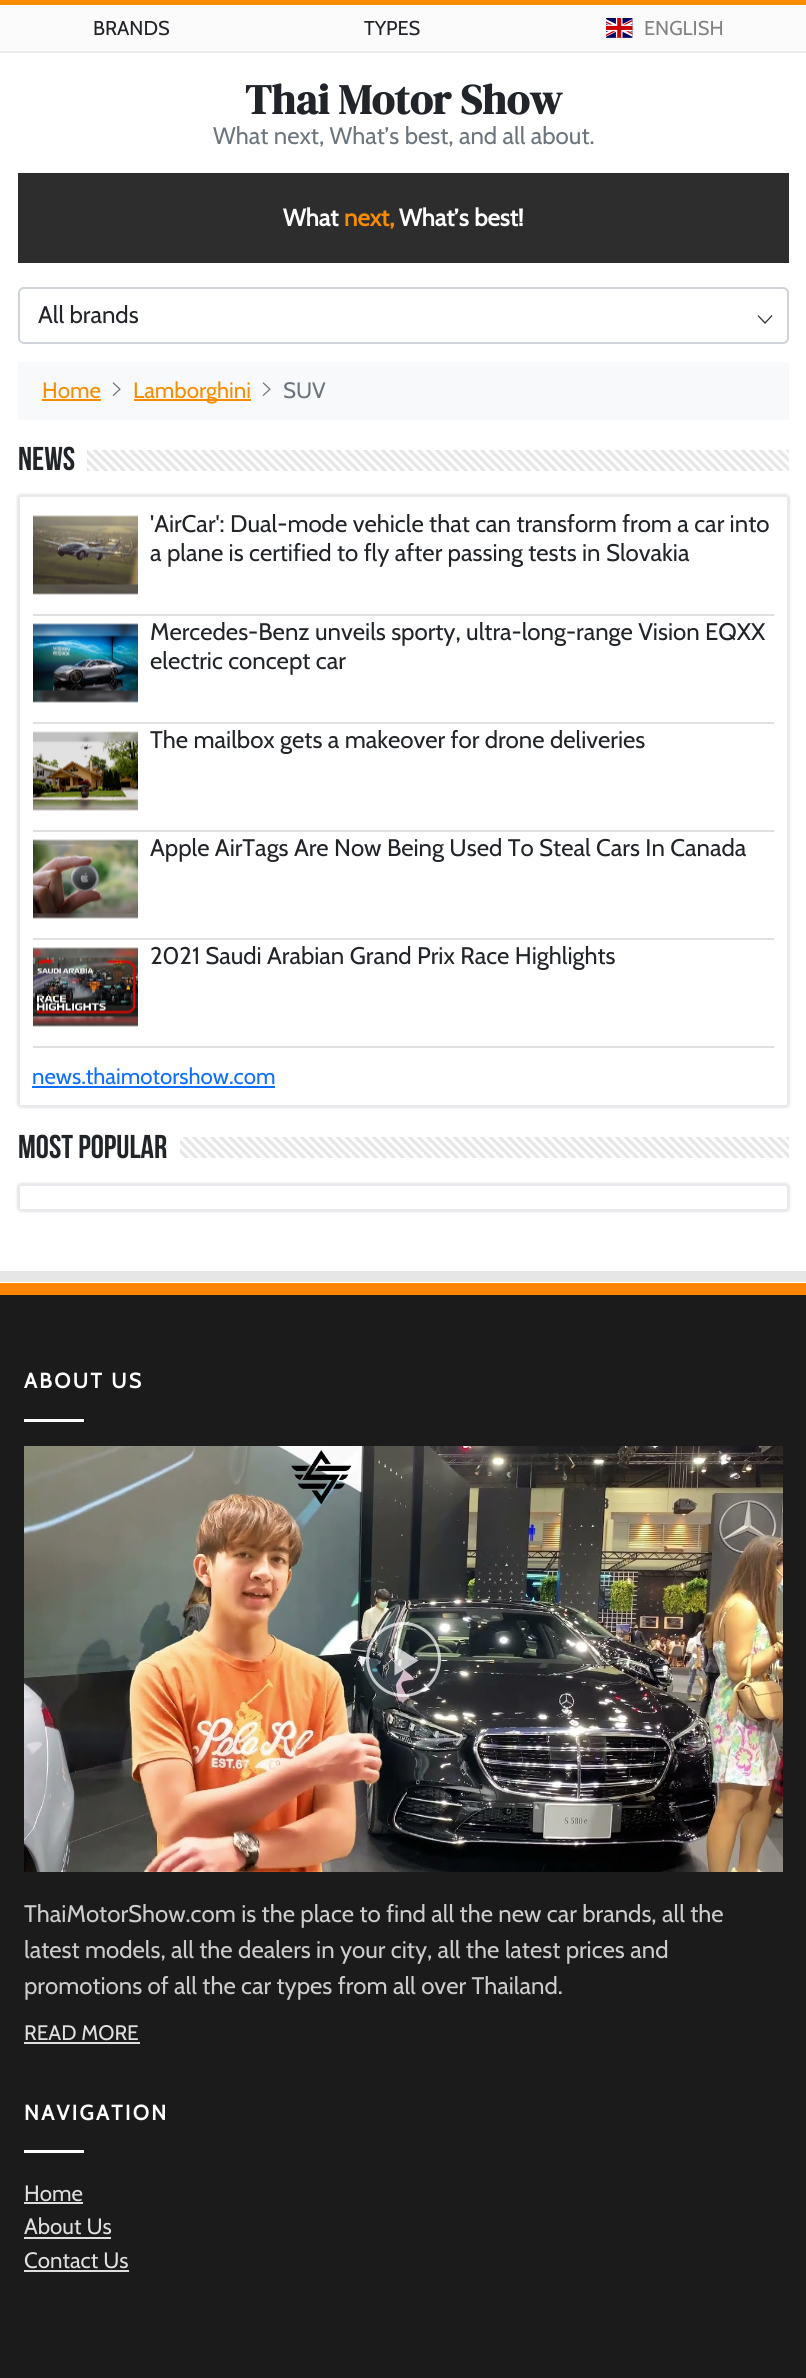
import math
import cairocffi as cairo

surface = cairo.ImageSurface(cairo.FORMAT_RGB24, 806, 2378)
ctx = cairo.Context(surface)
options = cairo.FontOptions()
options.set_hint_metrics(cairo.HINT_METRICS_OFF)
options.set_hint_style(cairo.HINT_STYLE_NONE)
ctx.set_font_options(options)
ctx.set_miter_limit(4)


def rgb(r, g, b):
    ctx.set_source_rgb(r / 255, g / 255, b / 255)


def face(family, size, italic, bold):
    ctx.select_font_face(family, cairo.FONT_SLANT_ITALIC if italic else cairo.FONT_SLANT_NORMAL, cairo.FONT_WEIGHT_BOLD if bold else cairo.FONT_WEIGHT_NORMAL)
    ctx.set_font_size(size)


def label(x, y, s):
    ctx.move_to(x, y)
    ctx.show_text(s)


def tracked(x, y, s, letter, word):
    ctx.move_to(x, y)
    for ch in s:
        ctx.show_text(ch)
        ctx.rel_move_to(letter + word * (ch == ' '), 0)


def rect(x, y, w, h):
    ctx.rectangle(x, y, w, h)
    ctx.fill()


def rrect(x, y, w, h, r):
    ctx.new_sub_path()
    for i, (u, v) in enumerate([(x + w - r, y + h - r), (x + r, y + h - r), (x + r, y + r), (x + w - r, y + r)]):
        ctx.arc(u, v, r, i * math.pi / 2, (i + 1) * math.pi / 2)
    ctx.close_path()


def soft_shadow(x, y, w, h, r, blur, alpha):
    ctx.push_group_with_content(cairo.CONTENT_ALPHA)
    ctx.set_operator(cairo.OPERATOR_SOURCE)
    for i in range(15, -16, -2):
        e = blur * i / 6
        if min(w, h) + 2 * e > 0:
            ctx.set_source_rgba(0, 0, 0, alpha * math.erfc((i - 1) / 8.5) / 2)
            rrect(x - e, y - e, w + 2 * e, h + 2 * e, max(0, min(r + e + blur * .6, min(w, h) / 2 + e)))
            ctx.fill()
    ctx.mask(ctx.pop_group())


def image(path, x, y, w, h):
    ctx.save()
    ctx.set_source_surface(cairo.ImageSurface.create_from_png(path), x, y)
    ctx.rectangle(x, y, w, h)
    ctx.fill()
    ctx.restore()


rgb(255, 255, 255)
ctx.paint()
rgb(248, 140, 0)
rect(0, 0, 806, 5)
rgb(251, 251, 251)
rect(0, 5, 806, 46)
rgb(236, 236, 236)
rect(0, 51, 806, 2)
face('Cabin', 20, 0, 0)
rgb(33, 37, 41)
label(93, 35, 'BRANDS')
label(364, 35, 'TYPES')
image('image0.png', 606, 18, 27, 20)
rgb(131, 131, 131)
label(644, 35, 'ENGLISH')
face('DM Serif Display', 42, 0, 1)
rgb(33, 37, 41)
label(245, 114, 'Thai Motor Show')
face('Cabin', 24, 0, 0)
rgb(108, 117, 125)
label(213, 144, 'What next, What’s best, and all about.')
rgb(45, 45, 45)
rect(18, 173, 771, 90)
face('Cabin', 24, 0, 1)
rgb(255, 255, 255)
label(283, 226, 'What')
rgb(248, 140, 0)
label(344, 226, 'next,')
rgb(255, 255, 255)
label(399, 226, 'What’s best!')
rrect(19, 288, 769, 55, 5)
rgb(206, 212, 218)
ctx.stroke()
face('Cabin', 24, 0, 0)
rgb(33, 37, 41)
label(38, 323, 'All brands')
image('image1.png', 757, 315, 16, 9)
rgb(248, 249, 250)
rect(18, 362, 771, 58)
face('Cabin', 22.25, 0, 0)
rgb(248, 140, 0)
label(42, 398, 'Home')
rect(42, 399, 59, 2)
image('image2.png', 112, 382, 9, 14)
rect(134, 399, 117, 2)
label(133, 398, 'Lamborghini')
image('image2.png', 262, 382, 9, 14)
rgb(108, 117, 125)
label(283, 398, 'SUV')
image('image3.png', 87, 450, 702, 21)
face('Bebas Neue', 33, 0, 1)
rgb(33, 37, 41)
label(18, 470, 'News')
ctx.save()
ctx.set_fill_rule(cairo.FILL_RULE_EVEN_ODD)
ctx.new_path()
ctx.move_to(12, 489)
ctx.line_to(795, 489)
ctx.line_to(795, 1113)
ctx.line_to(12, 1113)
ctx.close_path()
ctx.move_to(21, 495)
ctx.line_to(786, 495)
ctx.curve_to(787.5, 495, 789, 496.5, 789, 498)
ctx.line_to(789, 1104)
ctx.curve_to(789, 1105.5, 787.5, 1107, 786, 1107)
ctx.line_to(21, 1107)
ctx.curve_to(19.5, 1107, 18, 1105.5, 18, 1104)
ctx.line_to(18, 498)
ctx.curve_to(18, 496.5, 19.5, 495, 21, 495)
ctx.close_path()
ctx.clip()
rgb(0, 0, 0)
soft_shadow(18, 495, 771, 612, 3, 1.5, 0.2)
ctx.restore()
rrect(19, 496, 769, 610, 2)
rgb(232, 233, 236)
ctx.stroke()
rgb(225, 225, 225)
rect(33, 614, 741, 2)
image('image4.png', 33, 515, 105, 80)
face('Cabin', 24, 0, 0)
rgb(33, 37, 41)
label(150, 532, '\'AirCar\': Dual-mode vehicle that can transform from a car into')
label(150, 561, 'a plane is certified to fly after passing tests in Slovakia')
rgb(225, 225, 225)
rect(33, 722, 741, 2)
image('image5.png', 33, 623, 105, 80)
rgb(33, 37, 41)
label(150, 640, 'Mercedes-Benz unveils sporty, ultra-long-range Vision EQXX')
label(150, 669, 'electric concept car')
rgb(225, 225, 225)
rect(33, 830, 741, 2)
image('image6.png', 33, 731, 105, 80)
rgb(33, 37, 41)
label(150, 748, 'The mailbox gets a makeover for drone deliveries')
rgb(225, 225, 225)
rect(33, 938, 741, 2)
image('image7.png', 33, 839, 105, 80)
rgb(33, 37, 41)
label(150, 856, 'Apple AirTags Are Now Being Used To Steal Cars In Canada')
rgb(225, 225, 225)
rect(33, 1046, 741, 2)
image('image8.png', 33, 947, 105, 80)
rgb(33, 37, 41)
label(150, 964, '2021 Saudi Arabian Grand Prix Race Highlights')
face('Cabin', 22.25, 0, 0)
rgb(13, 110, 253)
label(32, 1084, 'news.thaimotorshow.com')
rect(32, 1086, 243, 2)
image('image9.png', 180, 1137, 609, 21)
face('Bebas Neue', 33, 0, 1)
rgb(33, 37, 41)
label(18, 1158, 'Most Popular')
ctx.save()
ctx.set_fill_rule(cairo.FILL_RULE_EVEN_ODD)
ctx.new_path()
ctx.move_to(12, 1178)
ctx.line_to(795, 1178)
ctx.line_to(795, 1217)
ctx.line_to(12, 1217)
ctx.close_path()
ctx.move_to(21, 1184)
ctx.line_to(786, 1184)
ctx.curve_to(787.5, 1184, 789, 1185.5, 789, 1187)
ctx.line_to(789, 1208)
ctx.curve_to(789, 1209.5, 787.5, 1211, 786, 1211)
ctx.line_to(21, 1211)
ctx.curve_to(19.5, 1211, 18, 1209.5, 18, 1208)
ctx.line_to(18, 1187)
ctx.curve_to(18, 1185.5, 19.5, 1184, 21, 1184)
ctx.close_path()
ctx.clip()
rgb(0, 0, 0)
soft_shadow(18, 1184, 771, 27, 3, 1.5, 0.2)
ctx.restore()
rrect(19, 1185, 769, 25, 2)
rgb(232, 233, 236)
ctx.stroke()
rgb(230, 230, 230)
rect(0, 1271, 806, 11)
rgb(27, 27, 27)
rect(0, 1295, 806, 1083)
rgb(255, 133, 0)
rect(0, 1283, 806, 12)
face('Cabin', 21, 0, 1)
rgb(255, 255, 255)
tracked(24, 1388, 'ABOUT US', 2.4, 0)
rect(24, 1419, 60, 3)
image('image10.png', 24, 1446, 759, 426)
ctx.arc(403.5, 1659.5, 36, 0, 2 * math.pi)
ctx.set_source_rgba(1, 1, 1, 0.7)
ctx.set_line_width(3)
ctx.stroke()
ctx.new_path()
ctx.move_to(394.5, 1645.5)
ctx.line_to(418.5, 1660.5)
ctx.line_to(394.5, 1675.5)
ctx.close_path()
ctx.fill()
face('Cabin', 24, 0, 0)
rgb(204, 204, 204)
label(24, 1922, 'ThaiMotorShow.com is the place to find all the new car brands, all the')
label(24, 1958, 'latest models, all the dealers in your city, all the latest prices and')
label(24, 1994, 'promotions of all the car types from all over Thailand.')
face('Cabin', 21, 0, 0)
rgb(223, 223, 223)
label(24, 2040, 'READ MORE')
rect(24, 2042, 116, 2)
face('Cabin', 21, 0, 1)
rgb(255, 255, 255)
tracked(24, 2120, 'NAVIGATION', 2.4, 0)
rect(24, 2150, 60, 3)
face('Cabin', 22.25, 0, 0)
rgb(223, 223, 223)
label(24, 2201, 'Home')
rect(24, 2202, 59, 2)
label(24, 2234, 'About Us')
rect(24, 2237, 87, 2)
label(24, 2268, 'Contact Us')
rect(24, 2270, 105, 2)
surface.write_to_png('render.png')
